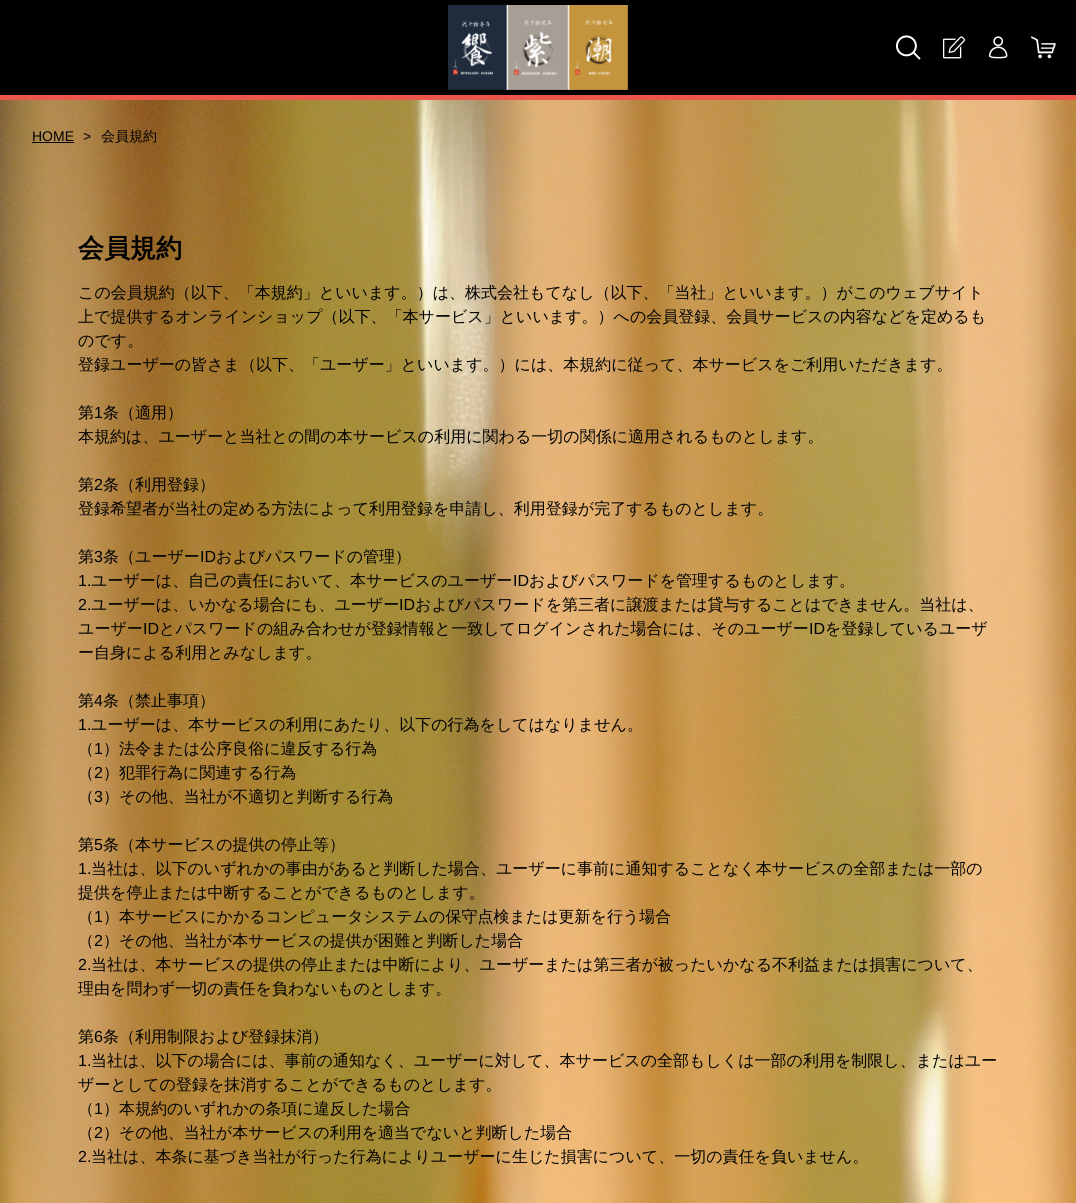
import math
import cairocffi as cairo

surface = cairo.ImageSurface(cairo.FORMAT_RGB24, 1076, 1203)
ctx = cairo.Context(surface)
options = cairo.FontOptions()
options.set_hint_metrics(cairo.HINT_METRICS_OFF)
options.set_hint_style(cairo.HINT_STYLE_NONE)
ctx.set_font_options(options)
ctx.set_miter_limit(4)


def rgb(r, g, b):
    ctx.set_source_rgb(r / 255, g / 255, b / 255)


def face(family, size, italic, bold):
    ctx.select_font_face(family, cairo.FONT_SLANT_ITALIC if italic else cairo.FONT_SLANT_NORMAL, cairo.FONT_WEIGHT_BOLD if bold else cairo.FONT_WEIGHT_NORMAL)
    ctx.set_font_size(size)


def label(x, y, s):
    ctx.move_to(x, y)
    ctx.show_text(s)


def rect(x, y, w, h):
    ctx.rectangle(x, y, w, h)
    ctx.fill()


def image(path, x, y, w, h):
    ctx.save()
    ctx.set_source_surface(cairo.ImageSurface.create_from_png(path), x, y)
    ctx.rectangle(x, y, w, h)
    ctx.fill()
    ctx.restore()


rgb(255, 255, 255)
ctx.paint()
image('image0.png', 0, 100, 1076, 1103)
rgb(0, 0, 0)
rect(0, 0, 1076, 95)
rgb(236, 87, 76)
rect(0, 95, 1076, 5)
image('image1.png', 448, 5, 180, 85)
image('image2.png', 896, 35, 25, 25)
image('image3.png', 943, 36, 22, 23)
image('image4.png', 989, 36, 19, 23)
image('image5.png', 1031, 36, 25, 23)
face('Liberation Sans', 14, 0, 0)
rgb(0, 0, 0)
label(32, 141, 'HOME')
rect(32, 142, 42, 1)
label(83, 141, '>')
face('WenQuanYi Zen Hei Medium', 14, 0, 0)
label(101, 141, '会員規約')
face('WenQuanYi Zen Hei', 26, 0, 1)
label(78, 257, '会員規約')
face('WenQuanYi Zen Hei Medium', 16, 0, 0)
label(78, 298, 'この会員規約（以下、「本規約」といいます。）は、株式会社もてなし（以下、「当社」といいます。）がこのウェブサイト')
label(78, 322, '上で提供するオンラインショップ（以下、「本サービス」といいます。）への会員登録、会員サービスの内容などを定めるも')
label(78, 346, 'のです。')
label(78, 370, '登録ユーザーの皆さま（以下、「ユーザー」といいます。）には、本規約に従って、本サービスをご利用いただきます。')
label(78, 418, '第')
face('Liberation Sans', 16, 0, 0)
label(94, 418, '1')
face('WenQuanYi Zen Hei Medium', 16, 0, 0)
label(103, 418, '条（適用）')
label(78, 442, '本規約は、ユーザーと当社との間の本サービスの利用に関わる一切の関係に適用されるものとします。')
label(78, 490, '第')
face('Liberation Sans', 16, 0, 0)
label(94, 490, '2')
face('WenQuanYi Zen Hei Medium', 16, 0, 0)
label(103, 490, '条（利用登録）')
label(78, 514, '登録希望者が当社の定める方法によって利用登録を申請し、利用登録が完了するものとします。')
label(78, 562, '第')
face('Liberation Sans', 16, 0, 0)
label(94, 562, '3')
face('WenQuanYi Zen Hei Medium', 16, 0, 0)
label(103, 562, '条（ユーザー')
face('Liberation Sans', 16, 0, 0)
label(200, 562, 'ID')
face('WenQuanYi Zen Hei Medium', 16, 0, 0)
label(216, 562, 'およびパスワードの管理）')
face('Liberation Sans', 16, 0, 0)
label(78, 586, '1.')
face('WenQuanYi Zen Hei Medium', 16, 0, 0)
label(91, 586, 'ユーザーは、自己の責任において、本サービスのユーザー')
face('Liberation Sans', 16, 0, 0)
label(513, 586, 'ID')
face('WenQuanYi Zen Hei Medium', 16, 0, 0)
label(529, 586, 'およびパスワードを管理するものとします。')
face('Liberation Sans', 16, 0, 0)
label(78, 610, '2.')
face('WenQuanYi Zen Hei Medium', 16, 0, 0)
label(91, 610, 'ユーザーは、いかなる場合にも、ユーザー')
face('Liberation Sans', 16, 0, 0)
label(399, 610, 'ID')
face('WenQuanYi Zen Hei Medium', 16, 0, 0)
label(415, 610, 'およびパスワードを第三者に譲渡または貸与することはできません。当社は、')
label(78, 634, 'ユーザー')
face('Liberation Sans', 16, 0, 0)
label(143, 634, 'ID')
face('WenQuanYi Zen Hei Medium', 16, 0, 0)
label(159, 634, 'とパスワードの組み合わせが登録情報と一致してログインされた場合には、そのユーザー')
face('Liberation Sans', 16, 0, 0)
label(809, 634, 'ID')
face('WenQuanYi Zen Hei Medium', 16, 0, 0)
label(825, 634, 'を登録しているユーザ')
label(78, 658, 'ー自身による利用とみなします。')
label(78, 706, '第')
face('Liberation Sans', 16, 0, 0)
label(94, 706, '4')
face('WenQuanYi Zen Hei Medium', 16, 0, 0)
label(103, 706, '条（禁止事項）')
face('Liberation Sans', 16, 0, 0)
label(78, 730, '1.')
face('WenQuanYi Zen Hei Medium', 16, 0, 0)
label(91, 730, 'ユーザーは、本サービスの利用にあたり、以下の行為をしてはなりません。')
label(78, 754, '（')
face('Liberation Sans', 16, 0, 0)
label(94, 754, '1')
face('WenQuanYi Zen Hei Medium', 16, 0, 0)
label(103, 754, '）法令または公序良俗に違反する行為')
label(78, 778, '（')
face('Liberation Sans', 16, 0, 0)
label(94, 778, '2')
face('WenQuanYi Zen Hei Medium', 16, 0, 0)
label(103, 778, '）犯罪行為に関連する行為')
label(78, 802, '（')
face('Liberation Sans', 16, 0, 0)
label(94, 802, '3')
face('WenQuanYi Zen Hei Medium', 16, 0, 0)
label(103, 802, '）その他、当社が不適切と判断する行為')
label(78, 850, '第')
face('Liberation Sans', 16, 0, 0)
label(94, 850, '5')
face('WenQuanYi Zen Hei Medium', 16, 0, 0)
label(103, 850, '条（本サービスの提供の停止等）')
face('Liberation Sans', 16, 0, 0)
label(78, 874, '1.')
face('WenQuanYi Zen Hei Medium', 16, 0, 0)
label(91, 874, '当社は、以下のいずれかの事由があると判断した場合、ユーザーに事前に通知することなく本サービスの全部または一部の')
label(78, 898, '提供を停止または中断することができるものとします。')
label(78, 922, '（')
face('Liberation Sans', 16, 0, 0)
label(94, 922, '1')
face('WenQuanYi Zen Hei Medium', 16, 0, 0)
label(103, 922, '）本サービスにかかるコンピュータシステムの保守点検または更新を行う場合')
label(78, 946, '（')
face('Liberation Sans', 16, 0, 0)
label(94, 946, '2')
face('WenQuanYi Zen Hei Medium', 16, 0, 0)
label(103, 946, '）その他、当社が本サービスの提供が困難と判断した場合')
face('Liberation Sans', 16, 0, 0)
label(78, 970, '2.')
face('WenQuanYi Zen Hei Medium', 16, 0, 0)
label(91, 970, '当社は、本サービスの提供の停止または中断により、ユーザーまたは第三者が被ったいかなる不利益または損害について、')
label(78, 994, '理由を問わず一切の責任を負わないものとします。')
label(78, 1042, '第')
face('Liberation Sans', 16, 0, 0)
label(94, 1042, '6')
face('WenQuanYi Zen Hei Medium', 16, 0, 0)
label(103, 1042, '条（利用制限および登録抹消）')
face('Liberation Sans', 16, 0, 0)
label(78, 1066, '1.')
face('WenQuanYi Zen Hei Medium', 16, 0, 0)
label(91, 1066, '当社は、以下の場合には、事前の通知なく、ユーザーに対して、本サービスの全部もしくは一部の利用を制限し、またはユー')
label(78, 1090, 'ザーとしての登録を抹消することができるものとします。')
label(78, 1114, '（')
face('Liberation Sans', 16, 0, 0)
label(94, 1114, '1')
face('WenQuanYi Zen Hei Medium', 16, 0, 0)
label(103, 1114, '）本規約のいずれかの条項に違反した場合')
label(78, 1138, '（')
face('Liberation Sans', 16, 0, 0)
label(94, 1138, '2')
face('WenQuanYi Zen Hei Medium', 16, 0, 0)
label(103, 1138, '）その他、当社が本サービスの利用を適当でないと判断した場合')
face('Liberation Sans', 16, 0, 0)
label(78, 1162, '2.')
face('WenQuanYi Zen Hei Medium', 16, 0, 0)
label(91, 1162, '当社は、本条に基づき当社が行った行為によりユーザーに生じた損害について、一切の責任を負いません。')
surface.write_to_png('render.png')
